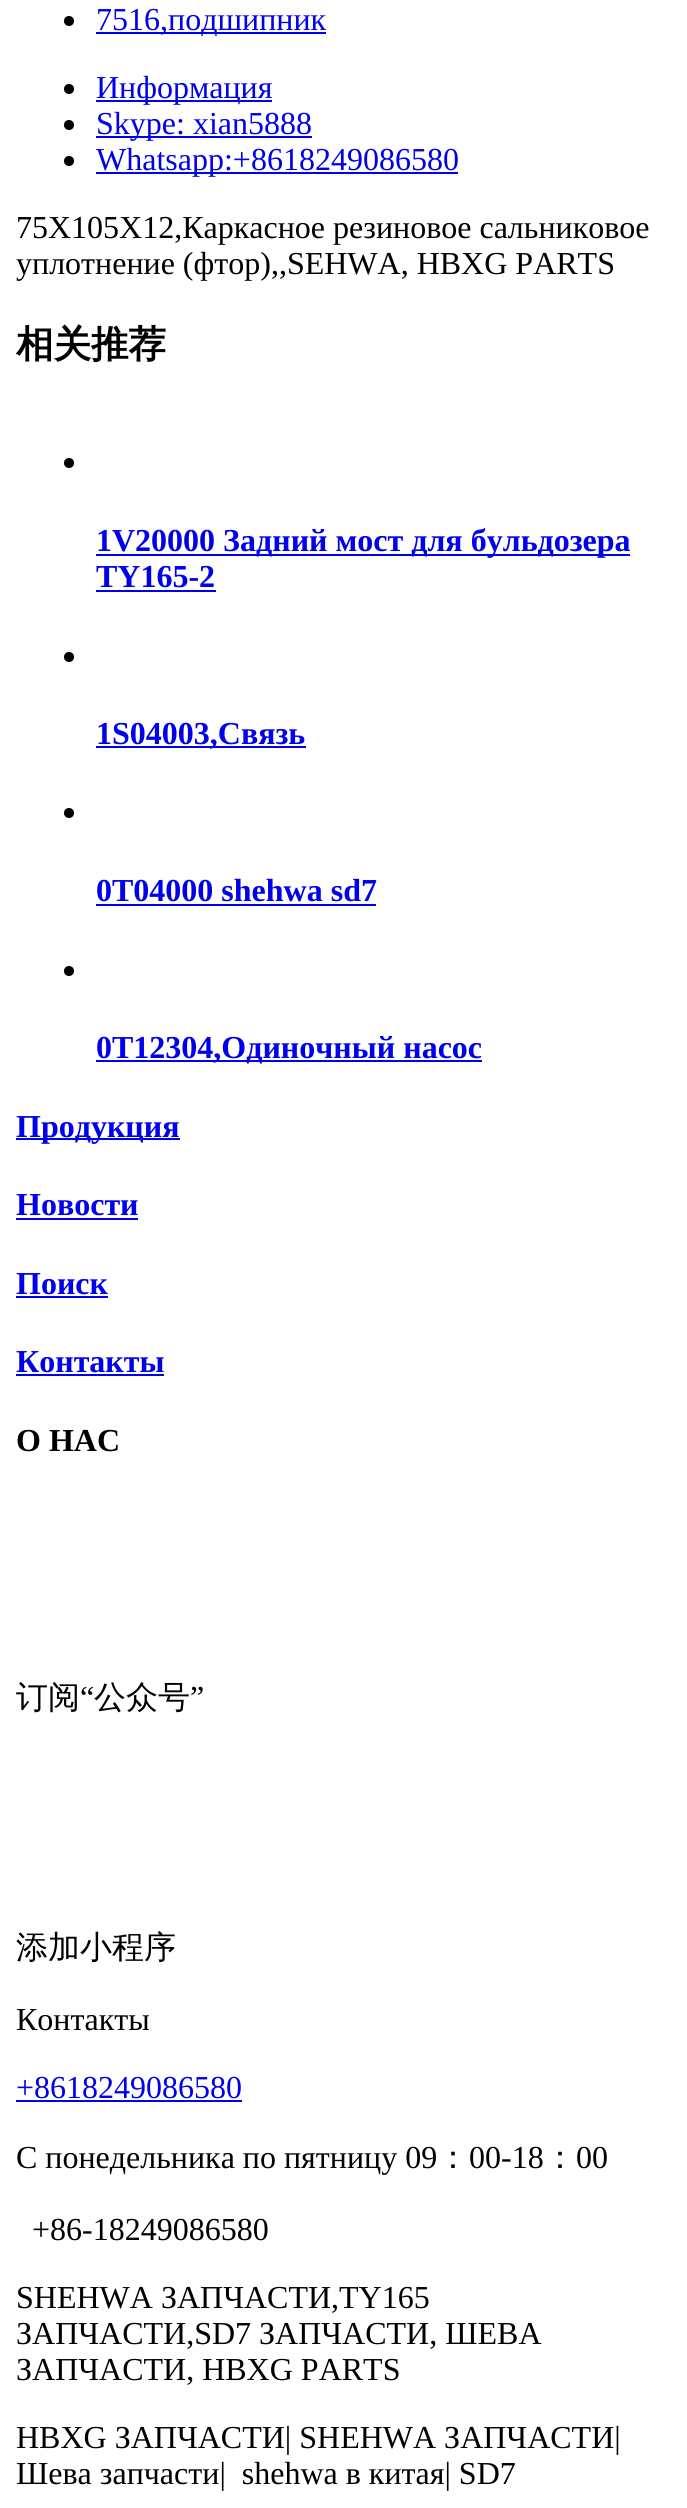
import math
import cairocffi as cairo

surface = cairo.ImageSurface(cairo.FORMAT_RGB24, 687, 2508)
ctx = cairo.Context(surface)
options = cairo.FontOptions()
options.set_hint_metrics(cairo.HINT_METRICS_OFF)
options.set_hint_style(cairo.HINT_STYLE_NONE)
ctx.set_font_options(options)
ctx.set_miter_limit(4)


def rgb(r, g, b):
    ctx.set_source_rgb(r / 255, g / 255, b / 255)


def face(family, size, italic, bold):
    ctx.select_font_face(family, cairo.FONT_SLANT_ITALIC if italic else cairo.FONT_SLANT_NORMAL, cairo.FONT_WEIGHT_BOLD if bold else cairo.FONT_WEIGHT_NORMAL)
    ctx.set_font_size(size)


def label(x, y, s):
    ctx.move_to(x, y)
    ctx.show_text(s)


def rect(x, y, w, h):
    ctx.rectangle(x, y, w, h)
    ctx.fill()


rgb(255, 255, 255)
ctx.paint()
rgb(0, 0, 0)
ctx.arc(69, 21, 5, 0, 2 * math.pi)
ctx.fill()
rgb(0, 0, 238)
rect(96, 32, 230, 2)
face('Liberation Serif', 32, 0, 0)
label(96, 30, '7516,подшипник')
rgb(0, 0, 0)
ctx.new_path()
ctx.arc(69, 89, 5, 0, 2 * math.pi)
ctx.fill()
rgb(0, 0, 238)
rect(96, 100, 176, 2)
label(96, 98, 'Информация')
rgb(0, 0, 0)
ctx.new_path()
ctx.arc(69, 125, 5, 0, 2 * math.pi)
ctx.fill()
rgb(0, 0, 238)
rect(96, 136, 216, 2)
label(96, 134, 'Skype: xian5888')
rgb(0, 0, 0)
ctx.new_path()
ctx.arc(69, 161, 5, 0, 2 * math.pi)
ctx.fill()
rgb(0, 0, 238)
rect(96, 172, 362, 2)
label(96, 170, 'Whatsapp:+8618249086580')
rgb(0, 0, 0)
label(16, 238, '75X105X12,Каркасное резиновое сальниковое')
label(16, 274, 'уплотнение (фтор),,SEHWA, HBXG PARTS')
face('WenQuanYi Zen Hei', 37.5, 0, 1)
label(16, 357, '相关推荐')
ctx.new_path()
ctx.arc(69, 463, 5, 0, 2 * math.pi)
ctx.fill()
rgb(0, 0, 238)
rect(96, 554, 534, 2)
face('Liberation Serif', 32, 0, 1)
label(96, 551, '1V20000 Задний мост для бульдозера')
label(96, 587, 'TY165-2')
rect(96, 590, 120, 2)
rgb(0, 0, 0)
ctx.new_path()
ctx.arc(69, 657, 5, 0, 2 * math.pi)
ctx.fill()
rgb(0, 0, 238)
rect(96, 746, 210, 2)
label(96, 744, '1S04003,Связь')
rgb(0, 0, 0)
ctx.new_path()
ctx.arc(69, 813, 5, 0, 2 * math.pi)
ctx.fill()
rgb(0, 0, 238)
label(96, 901, '0Т04000 shehwa sd7')
rect(96, 904, 280, 2)
rgb(0, 0, 0)
ctx.new_path()
ctx.arc(69, 971, 5, 0, 2 * math.pi)
ctx.fill()
rgb(0, 0, 238)
rect(96, 1060, 386, 2)
label(96, 1058, '0T12304,Одиночный насос')
rect(16, 1138, 164, 2)
label(16, 1137, 'Продукция')
label(16, 1215, 'Новости')
rect(16, 1218, 122, 2)
label(16, 1294, 'Поиск')
rect(16, 1296, 92, 2)
label(16, 1372, 'Контакты')
rect(16, 1374, 148, 2)
rgb(0, 0, 0)
label(16, 1451, 'О НАС')
face('WenQuanYi Zen Hei Medium', 32, 0, 0)
label(16, 1708, '订阅')
face('Liberation Serif', 32, 0, 0)
label(80, 1708, '“')
face('WenQuanYi Zen Hei Medium', 32, 0, 0)
label(94, 1708, '公众号')
face('Liberation Serif', 32, 0, 0)
label(190, 1708, '”')
face('WenQuanYi Zen Hei Medium', 32, 0, 0)
label(16, 1958, '添加小程序')
face('Liberation Serif', 32, 0, 0)
label(16, 2030, 'Контакты')
rgb(0, 0, 238)
label(16, 2098, '+8618249086580')
rect(16, 2100, 226, 2)
rgb(0, 0, 0)
label(16, 2168, 'С понедельника по пятницу 09')
face('WenQuanYi Zen Hei Medium', 32, 0, 0)
label(437, 2168, '：')
face('Liberation Serif', 32, 0, 0)
label(469, 2168, '00-18')
face('WenQuanYi Zen Hei Medium', 32, 0, 0)
label(544, 2168, '：')
face('Liberation Serif', 32, 0, 0)
label(576, 2168, '00')
label(32, 2240, '+86-18249086580')
label(16, 2308, 'SHEHWA ЗАПЧАСТИ,TY165')
label(16, 2344, 'ЗАПЧАСТИ,SD7 ЗАПЧАСТИ, ШЕВА')
label(16, 2380, 'ЗАПЧАСТИ, HBXG PARTS')
label(16, 2448, 'HBXG ЗАПЧАСТИ| SHEHWA ЗАПЧАСТИ|')
label(16, 2484, 'Шева запчасти|  shehwa в китая| SD7')
surface.write_to_png('render.png')
